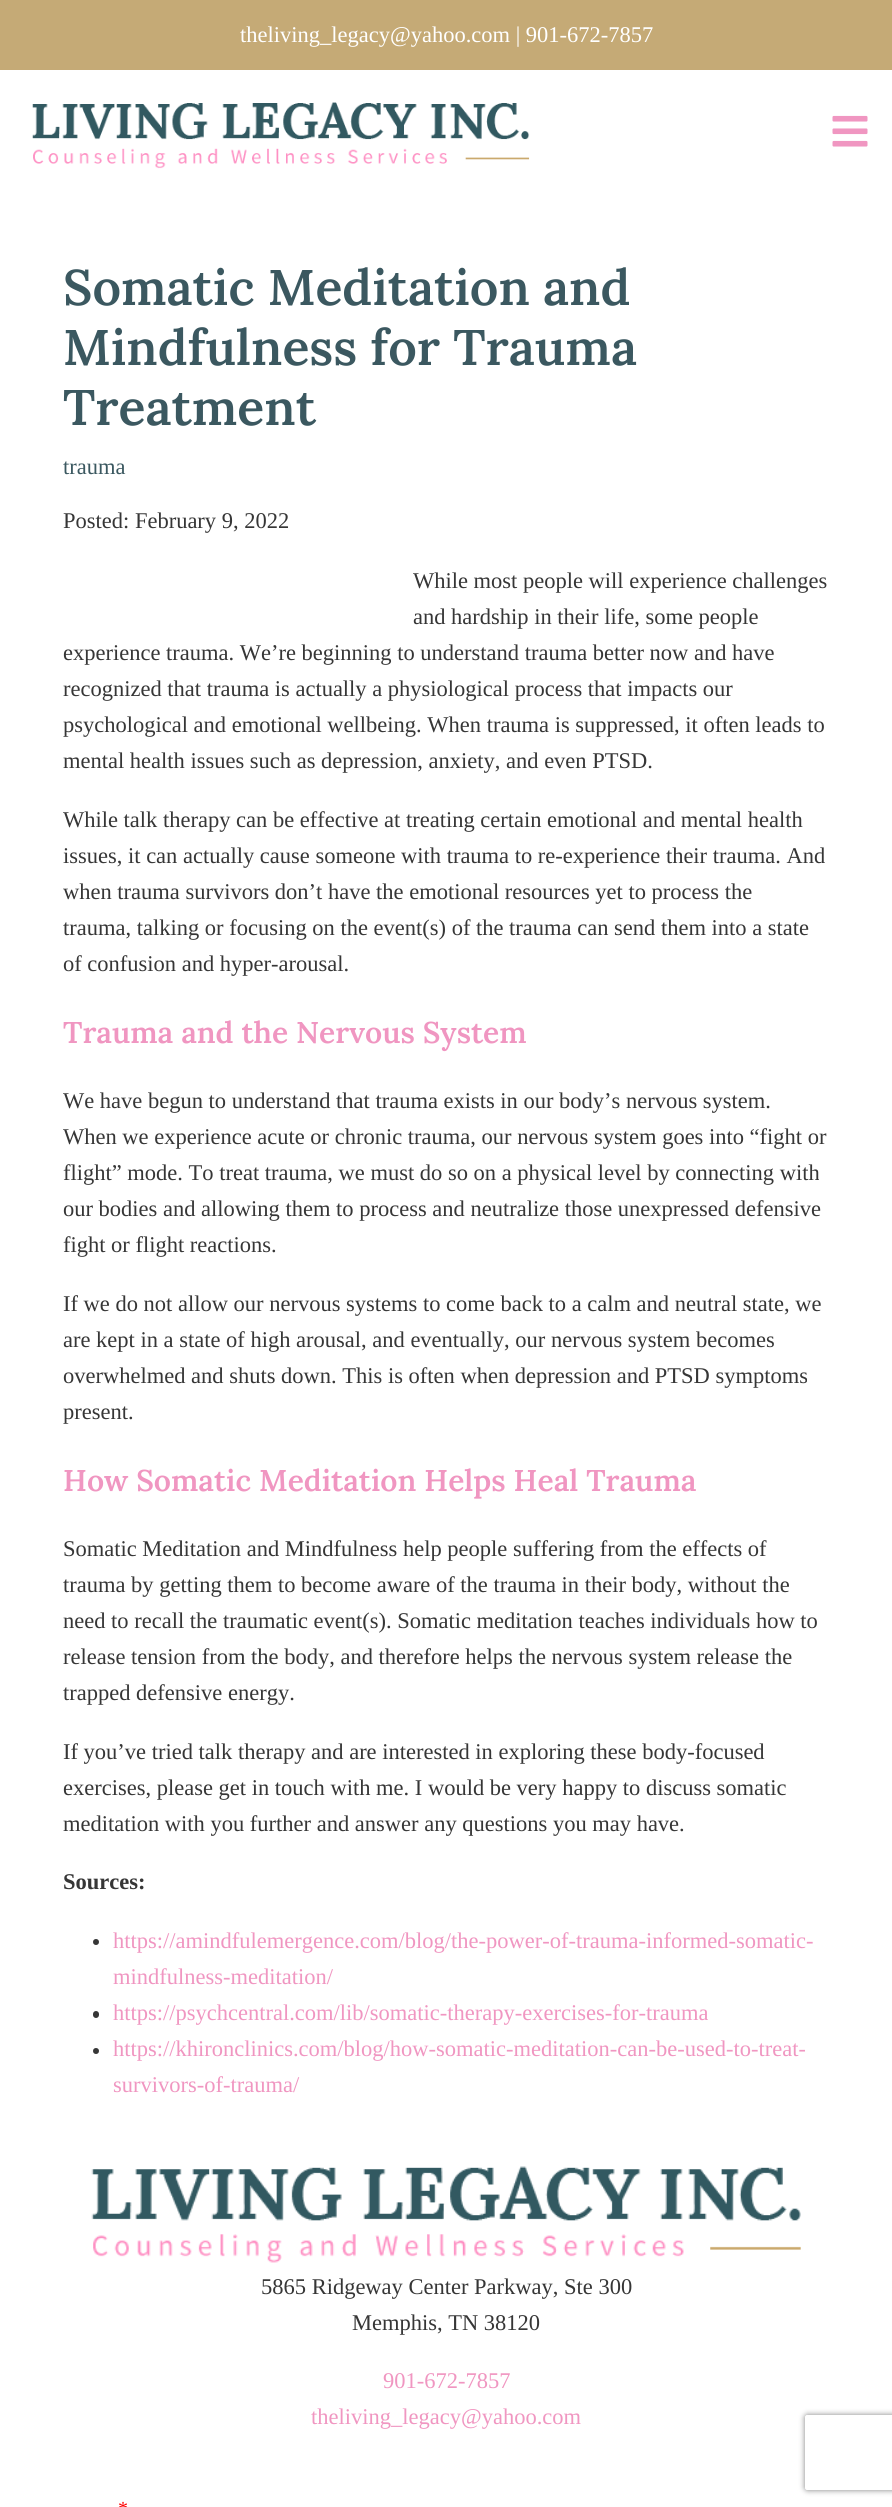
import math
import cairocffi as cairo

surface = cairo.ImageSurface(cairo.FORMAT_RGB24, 892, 2507)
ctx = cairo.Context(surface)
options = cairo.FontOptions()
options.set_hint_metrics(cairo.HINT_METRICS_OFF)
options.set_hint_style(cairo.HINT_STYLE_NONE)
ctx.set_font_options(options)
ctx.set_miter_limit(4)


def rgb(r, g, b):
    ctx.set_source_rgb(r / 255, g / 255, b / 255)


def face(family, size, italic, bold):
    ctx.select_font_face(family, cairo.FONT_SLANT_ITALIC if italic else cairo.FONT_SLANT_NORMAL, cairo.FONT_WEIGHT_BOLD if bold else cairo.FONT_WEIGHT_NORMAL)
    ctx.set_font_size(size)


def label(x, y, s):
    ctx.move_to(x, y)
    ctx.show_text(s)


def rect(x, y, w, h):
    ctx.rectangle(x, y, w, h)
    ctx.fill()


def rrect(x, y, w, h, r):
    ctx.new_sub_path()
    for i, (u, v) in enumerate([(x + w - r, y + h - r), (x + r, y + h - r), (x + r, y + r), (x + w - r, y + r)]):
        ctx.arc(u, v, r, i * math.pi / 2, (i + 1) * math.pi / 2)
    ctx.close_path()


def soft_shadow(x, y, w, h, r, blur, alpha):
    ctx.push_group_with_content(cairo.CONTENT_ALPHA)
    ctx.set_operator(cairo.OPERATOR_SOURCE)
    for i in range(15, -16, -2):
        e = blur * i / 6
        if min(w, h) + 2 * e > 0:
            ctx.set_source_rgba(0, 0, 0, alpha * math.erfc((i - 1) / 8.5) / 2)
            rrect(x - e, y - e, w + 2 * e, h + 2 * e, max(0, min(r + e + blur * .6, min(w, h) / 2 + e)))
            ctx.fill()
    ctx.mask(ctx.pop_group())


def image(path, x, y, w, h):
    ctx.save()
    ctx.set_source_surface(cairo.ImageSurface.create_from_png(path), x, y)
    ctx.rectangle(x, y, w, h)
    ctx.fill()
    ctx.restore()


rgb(255, 255, 255)
ctx.paint()
rgb(197, 170, 118)
rect(0, 0, 892, 70)
face('Liberation Serif', 22.5, 0, 0)
rgb(255, 255, 255)
label(240, 42, 'theliving_legacy@yahoo.com | 901-672-7857')
image('image0.png', 32, 102, 498, 67)
image('image1.png', 832, 115, 36, 32)
face('Lora SemiBold', 50, 0, 0)
rgb(59, 88, 96)
label(63, 305, 'Somatic Meditation and')
label(63, 365, 'Mindfulness for Trauma')
label(63, 425, 'Treatment')
face('Liberation Serif', 22.5, 0, 0)
label(63, 474, 'trauma')
rgb(54, 54, 54)
label(63, 528, 'Posted: February 9, 2022')
label(413, 588, 'While most people will experience challenges')
label(413, 624, 'and hardship in their life, some people')
label(63, 660, 'experience trauma. We’re beginning to understand trauma better now and have')
label(63, 696, 'recognized that trauma is actually a physiological process that impacts our')
label(63, 732, 'psychological and emotional wellbeing. When trauma is suppressed, it often leads to')
label(63, 768, 'mental health issues such as depression, anxiety, and even PTSD.')
label(63, 827, 'While talk therapy can be effective at treating certain emotional and mental health')
label(63, 863, 'issues, it can actually cause someone with trauma to re-experience their trauma. And')
label(63, 899, 'when trauma survivors don’t have the emotional resources yet to process the')
label(63, 935, 'trauma, talking or focusing on the event(s) of the trauma can send them into a state')
label(63, 971, 'of confusion and hyper-arousal.')
face('Lora SemiBold', 30, 0, 0)
rgb(240, 150, 193)
label(63, 1043, 'Trauma and the Nervous System')
face('Liberation Serif', 22.5, 0, 0)
rgb(54, 54, 54)
label(63, 1108, 'We have begun to understand that trauma exists in our body’s nervous system.')
label(63, 1144, 'When we experience acute or chronic trauma, our nervous system goes into “fight or')
label(63, 1180, 'flight” mode. To treat trauma, we must do so on a physical level by connecting with')
label(63, 1216, 'our bodies and allowing them to process and neutralize those unexpressed defensive')
label(63, 1252, 'fight or flight reactions.')
label(63, 1311, 'If we do not allow our nervous systems to come back to a calm and neutral state, we')
label(63, 1347, 'are kept in a state of high arousal, and eventually, our nervous system becomes')
label(63, 1383, 'overwhelmed and shuts down. This is often when depression and PTSD symptoms')
label(63, 1419, 'present.')
face('Lora SemiBold', 30, 0, 0)
rgb(240, 150, 193)
label(63, 1491, 'How Somatic Meditation Helps Heal Trauma')
face('Liberation Serif', 22.5, 0, 0)
rgb(54, 54, 54)
label(63, 1556, 'Somatic Meditation and Mindfulness help people suffering from the effects of')
label(63, 1592, 'trauma by getting them to become aware of the trauma in their body, without the')
label(63, 1628, 'need to recall the traumatic event(s). Somatic meditation teaches individuals how to')
label(63, 1664, 'release tension from the body, and therefore helps the nervous system release the')
label(63, 1700, 'trapped defensive energy.')
label(63, 1759, 'If you’ve tried talk therapy and are interested in exploring these body-focused')
label(63, 1795, 'exercises, please get in touch with me. I would be very happy to discuss somatic')
label(63, 1831, 'meditation with you further and answer any questions you may have.')
face('Liberation Serif', 22.5, 0, 1)
label(63, 1889, 'Sources:')
ctx.new_path()
ctx.arc(96, 1942, 3, 0, 2 * math.pi)
ctx.fill()
face('Liberation Serif', 22.5, 0, 0)
rgb(240, 150, 193)
label(113, 1948, 'https://amindfulemergence.com/blog/the-power-of-trauma-informed-somatic-')
label(113, 1984, 'mindfulness-meditation/')
rgb(54, 54, 54)
rrect(93, 2011, 6, 7, 3)
ctx.fill()
rgb(240, 150, 193)
label(113, 2020, 'https://psychcentral.com/lib/somatic-therapy-exercises-for-trauma')
rgb(54, 54, 54)
ctx.new_path()
ctx.arc(96, 2051, 3, 0, 2 * math.pi)
ctx.fill()
rgb(240, 150, 193)
label(113, 2056, 'https://khironclinics.com/blog/how-somatic-meditation-can-be-used-to-treat-')
label(113, 2092, 'survivors-of-trauma/')
image('image2.png', 91, 2166, 710, 97)
rgb(54, 54, 54)
label(261, 2294, '5865 Ridgeway Center Parkway, Ste 300')
label(352, 2330, 'Memphis, TN 38120')
rgb(240, 150, 193)
label(383, 2388, '901-672-7857')
label(311, 2424, 'theliving_legacy@yahoo.com')
face('Liberation Serif', 20, 0, 0)
rgb(255, 0, 0)
label(118, 2515, '*')
ctx.save()
ctx.set_fill_rule(cairo.FILL_RULE_EVEN_ODD)
ctx.new_path()
ctx.move_to(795, 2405)
ctx.line_to(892, 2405)
ctx.line_to(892, 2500)
ctx.line_to(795, 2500)
ctx.close_path()
ctx.move_to(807.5, 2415)
ctx.line_to(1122.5, 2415)
ctx.curve_to(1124, 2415, 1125, 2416, 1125, 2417.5)
ctx.line_to(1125, 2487.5)
ctx.curve_to(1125, 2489, 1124, 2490, 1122.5, 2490)
ctx.line_to(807.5, 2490)
ctx.curve_to(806, 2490, 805, 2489, 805, 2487.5)
ctx.line_to(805, 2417.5)
ctx.curve_to(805, 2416, 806, 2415, 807.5, 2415)
ctx.close_path()
ctx.clip()
rgb(128, 128, 128)
soft_shadow(805, 2415, 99, 75, 2.5, 3, 1)
ctx.restore()
surface.write_to_png('render.png')
